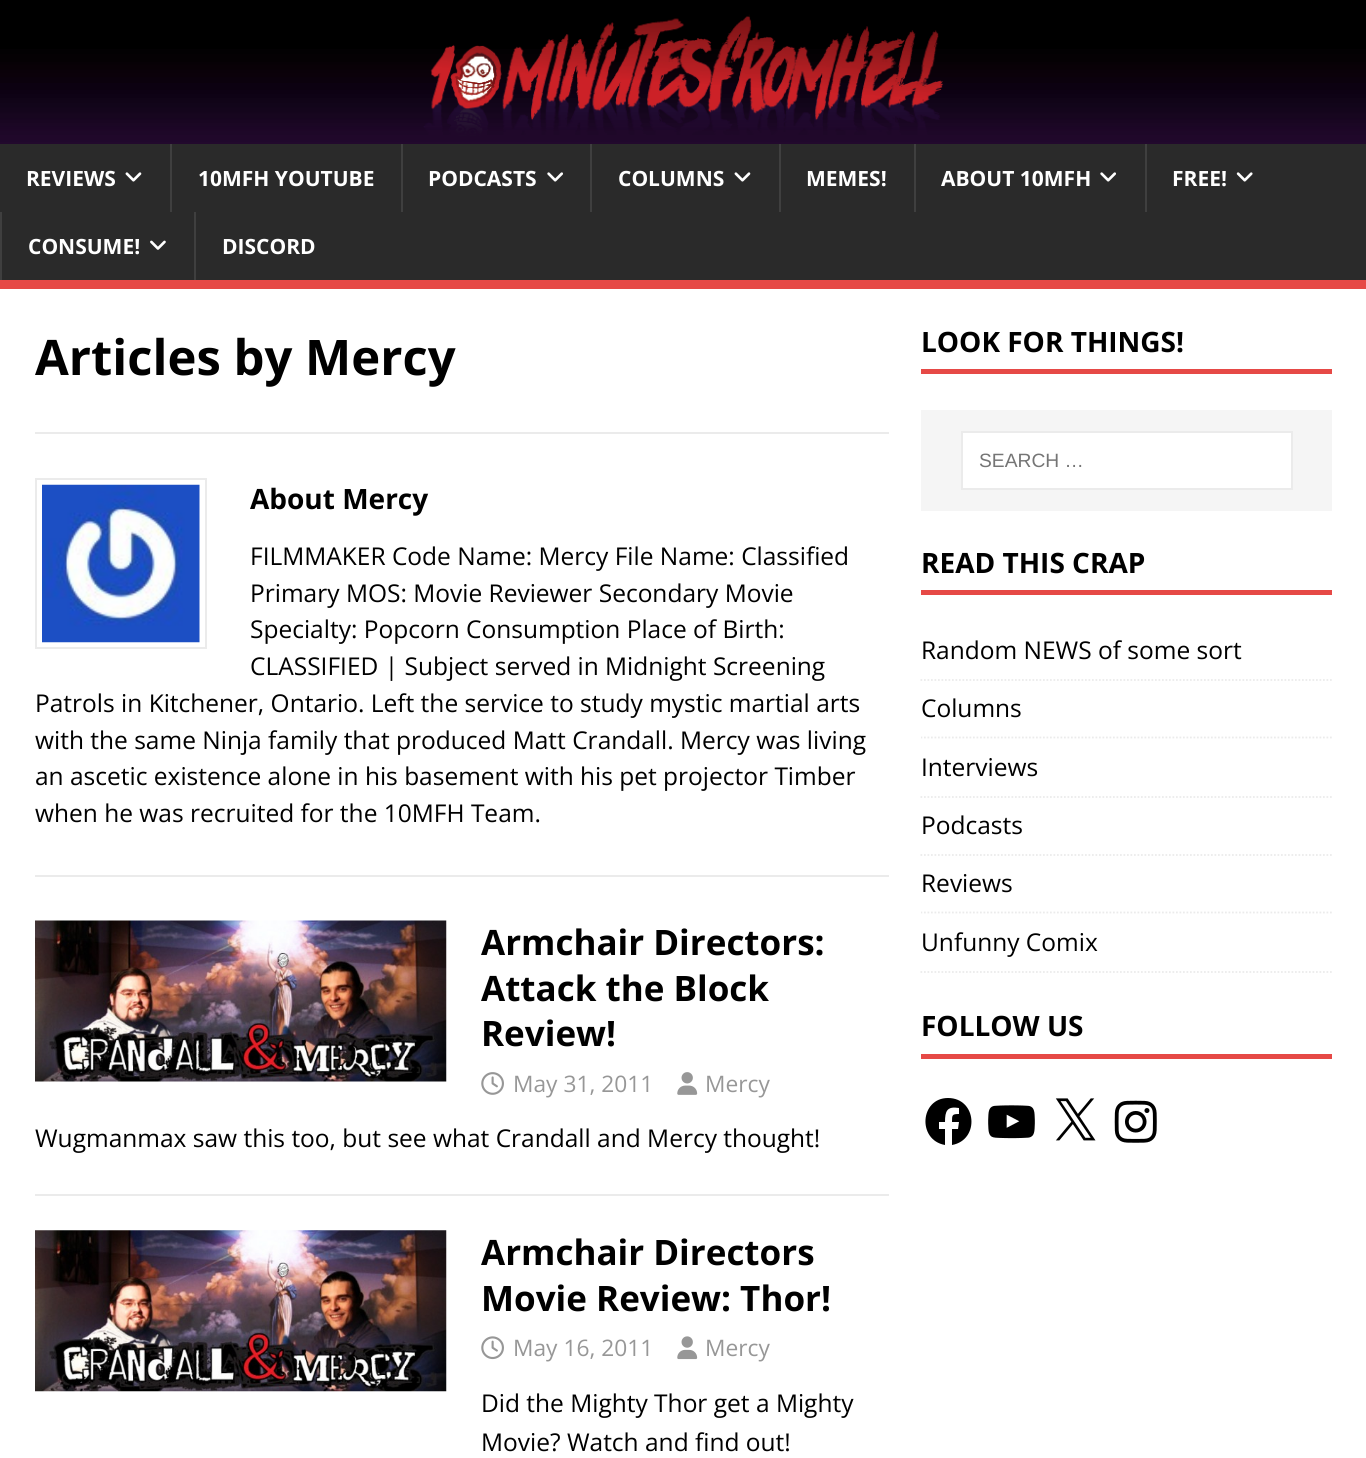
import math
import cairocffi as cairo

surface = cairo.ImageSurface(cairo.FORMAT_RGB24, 1366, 1458)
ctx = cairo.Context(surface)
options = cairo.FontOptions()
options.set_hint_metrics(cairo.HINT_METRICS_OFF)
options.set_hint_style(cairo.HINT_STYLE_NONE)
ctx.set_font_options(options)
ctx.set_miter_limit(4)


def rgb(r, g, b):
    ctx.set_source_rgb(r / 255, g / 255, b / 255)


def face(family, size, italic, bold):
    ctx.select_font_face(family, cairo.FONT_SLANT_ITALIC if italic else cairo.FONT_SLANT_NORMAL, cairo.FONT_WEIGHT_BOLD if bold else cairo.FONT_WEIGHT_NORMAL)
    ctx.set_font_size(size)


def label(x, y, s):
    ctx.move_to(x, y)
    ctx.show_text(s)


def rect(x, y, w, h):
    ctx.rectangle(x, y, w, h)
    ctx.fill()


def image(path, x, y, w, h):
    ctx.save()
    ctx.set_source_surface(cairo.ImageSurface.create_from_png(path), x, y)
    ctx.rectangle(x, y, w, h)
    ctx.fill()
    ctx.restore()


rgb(255, 255, 255)
ctx.paint()
image('image0.png', 0, 0, 1366, 144)
rgb(42, 42, 42)
rect(0, 144, 1366, 136)
rgb(230, 73, 70)
rect(0, 280, 1366, 9)
face('Open Sans', 21, 0, 1)
rgb(255, 255, 255)
label(26, 186, 'REVIEWS')
image('image1.png', 125, 172, 17, 10)
rgb(63, 63, 63)
rect(170, 144, 2, 68)
rgb(255, 255, 255)
label(198, 186, '10MFH YOUTUBE')
rgb(63, 63, 63)
rect(401, 144, 2, 68)
rgb(255, 255, 255)
label(428, 186, 'PODCASTS')
image('image2.png', 547, 172, 16, 10)
rgb(63, 63, 63)
rect(590, 144, 2, 68)
rgb(255, 255, 255)
label(618, 186, 'COLUMNS')
image('image1.png', 734, 172, 17, 10)
rgb(63, 63, 63)
rect(779, 144, 2, 68)
rgb(255, 255, 255)
label(806, 186, 'MEMES!')
rgb(63, 63, 63)
rect(914, 144, 2, 68)
rgb(255, 255, 255)
label(941, 186, 'ABOUT 10MFH')
image('image2.png', 1100, 172, 16, 10)
rgb(63, 63, 63)
rect(1145, 144, 2, 68)
rgb(255, 255, 255)
label(1172, 186, 'FREE!')
image('image3.png', 1236, 172, 17, 10)
rgb(63, 63, 63)
rect(0, 212, 2, 68)
rgb(255, 255, 255)
label(28, 254, 'CONSUME!')
image('image4.png', 150, 240, 16, 10)
rgb(63, 63, 63)
rect(194, 212, 2, 68)
rgb(255, 255, 255)
label(222, 254, 'DISCORD')
face('Open Sans', 49, 0, 1)
rgb(0, 0, 0)
label(35, 375, 'Articles by Mercy')
rgb(235, 235, 235)
rect(35, 432, 854, 2)
rect(35, 875, 854, 2)
ctx.rectangle(36, 479, 170, 169)
ctx.stroke()
image('image5.png', 42, 484, 158, 159)
face('Open Sans', 28, 0, 1)
rgb(0, 0, 0)
label(250, 509, 'About Mercy')
face('Open Sans', 24.5, 0, 0)
label(250, 565, 'FILMMAKER Code Name: Mercy File Name: Classified')
label(250, 602, 'Primary MOS: Movie Reviewer Secondary Movie')
label(250, 638, 'Specialty: Popcorn Consumption Place of Birth:')
label(250, 675, 'CLASSIFIED | Subject served in Midnight Screening')
label(35, 712, 'Patrols in Kitchener, Ontario. Left the service to study mystic martial arts')
label(35, 749, 'with the same Ninja family that produced Matt Crandall. Mercy was living')
label(35, 785, 'an ascetic existence alone in his basement with his pet projector Timber')
label(35, 822, 'when he was recruited for the 10MFH Team.')
rgb(235, 235, 235)
rect(35, 1194, 854, 2)
image('image6.png', 35, 920, 412, 162)
face('Open Sans', 35, 0, 1)
rgb(0, 0, 0)
label(481, 955, 'Armchair Directors:')
label(481, 1001, 'Attack the Block')
label(481, 1046, 'Review!')
image('image7.png', 481, 1072, 23, 23)
face('Open Sans', 22.75, 0, 0)
rgb(151, 151, 151)
label(513, 1092, 'May 31, 2011')
image('image8.png', 677, 1072, 21, 23)
label(705, 1092, 'Mercy')
face('Open Sans', 24.5, 0, 0)
rgb(0, 0, 0)
label(35, 1147, 'Wugmanmax saw this too, but see what Crandall and Mercy thought!')
image('image9.png', 35, 1230, 412, 162)
face('Open Sans', 35, 0, 1)
label(481, 1265, 'Armchair Directors')
label(481, 1311, 'Movie Review: Thor!')
image('image10.png', 481, 1336, 23, 24)
face('Open Sans', 22.75, 0, 0)
rgb(151, 151, 151)
label(513, 1356, 'May 16, 2011')
image('image11.png', 677, 1336, 21, 24)
label(705, 1356, 'Mercy')
face('Open Sans', 24.5, 0, 0)
rgb(0, 0, 0)
label(481, 1412, 'Did the Mighty Thor get a Mighty')
label(481, 1451, 'Movie? Watch and find out!')
rgb(230, 73, 70)
rect(921, 369, 411, 5)
face('Open Sans', 28, 0, 1)
rgb(0, 0, 0)
label(921, 352, 'LOOK FOR THINGS!')
rgb(245, 245, 245)
rect(921, 410, 411, 101)
rgb(255, 255, 255)
ctx.rectangle(962, 432, 330, 57)
ctx.fill_preserve()
rgb(235, 235, 235)
ctx.stroke()
face('Liberation Sans', 19.25, 0, 0)
rgb(117, 117, 117)
label(979, 467, 'SEARCH …')
rgb(230, 73, 70)
rect(921, 590, 411, 5)
face('Open Sans', 28, 0, 1)
rgb(0, 0, 0)
label(921, 573, 'READ THIS CRAP')
ctx.new_path()
ctx.move_to(920.5, 680)
ctx.line_to(1332, 680)
rgb(235, 235, 235)
ctx.set_line_width(1.8)
ctx.set_dash([1.75, 1.75])
ctx.stroke()
face('Open Sans', 24.5, 0, 0)
rgb(0, 0, 0)
label(921, 659, 'Random NEWS of some sort')
ctx.save()
ctx.rectangle(921, 546, 411, 427)
ctx.clip()
ctx.new_path()
ctx.move_to(920.5, 737.5)
ctx.line_to(1332, 737.5)
rgb(235, 235, 235)
ctx.stroke()
ctx.restore()
label(921, 717, 'Columns')
ctx.new_path()
ctx.move_to(920.5, 797)
ctx.line_to(1332, 797)
rgb(235, 235, 235)
ctx.stroke()
rgb(0, 0, 0)
label(921, 776, 'Interviews')
ctx.new_path()
ctx.move_to(920.5, 855)
ctx.line_to(1332, 855)
rgb(235, 235, 235)
ctx.stroke()
rgb(0, 0, 0)
label(921, 834, 'Podcasts')
ctx.save()
ctx.rectangle(921, 546, 411, 427)
ctx.clip()
ctx.new_path()
ctx.move_to(920.5, 912.5)
ctx.line_to(1332, 912.5)
rgb(235, 235, 235)
ctx.stroke()
ctx.restore()
label(921, 892, 'Reviews')
ctx.new_path()
ctx.move_to(920.5, 972)
ctx.line_to(1332, 972)
rgb(235, 235, 235)
ctx.stroke()
rgb(0, 0, 0)
label(921, 951, 'Unfunny Comix')
rgb(230, 73, 70)
rect(921, 1054, 411, 5)
face('Open Sans', 28, 0, 1)
rgb(0, 0, 0)
label(921, 1036, 'FOLLOW US')
ctx.new_path()
ctx.move_to(948, 1098)
ctx.curve_to(920, 1098, 917, 1140, 945, 1145)
ctx.line_to(945, 1129)
ctx.line_to(939, 1129)
ctx.line_to(939, 1122)
ctx.line_to(945, 1122)
ctx.curve_to(945, 1111, 947, 1106, 959, 1108)
ctx.line_to(959, 1114)
ctx.curve_to(952, 1114, 952, 1115, 952, 1122)
ctx.line_to(959, 1122)
ctx.line_to(958, 1129)
ctx.line_to(952, 1129)
ctx.line_to(952, 1145)
ctx.curve_to(980, 1140, 977, 1098, 948, 1098)
ctx.close_path()
ctx.fill()
image('image12.png', 988, 1105, 47, 34)
image('image13.png', 1055, 1098, 41, 43)
image('image14.png', 1114, 1100, 43, 43)
surface.write_to_png('render.png')
